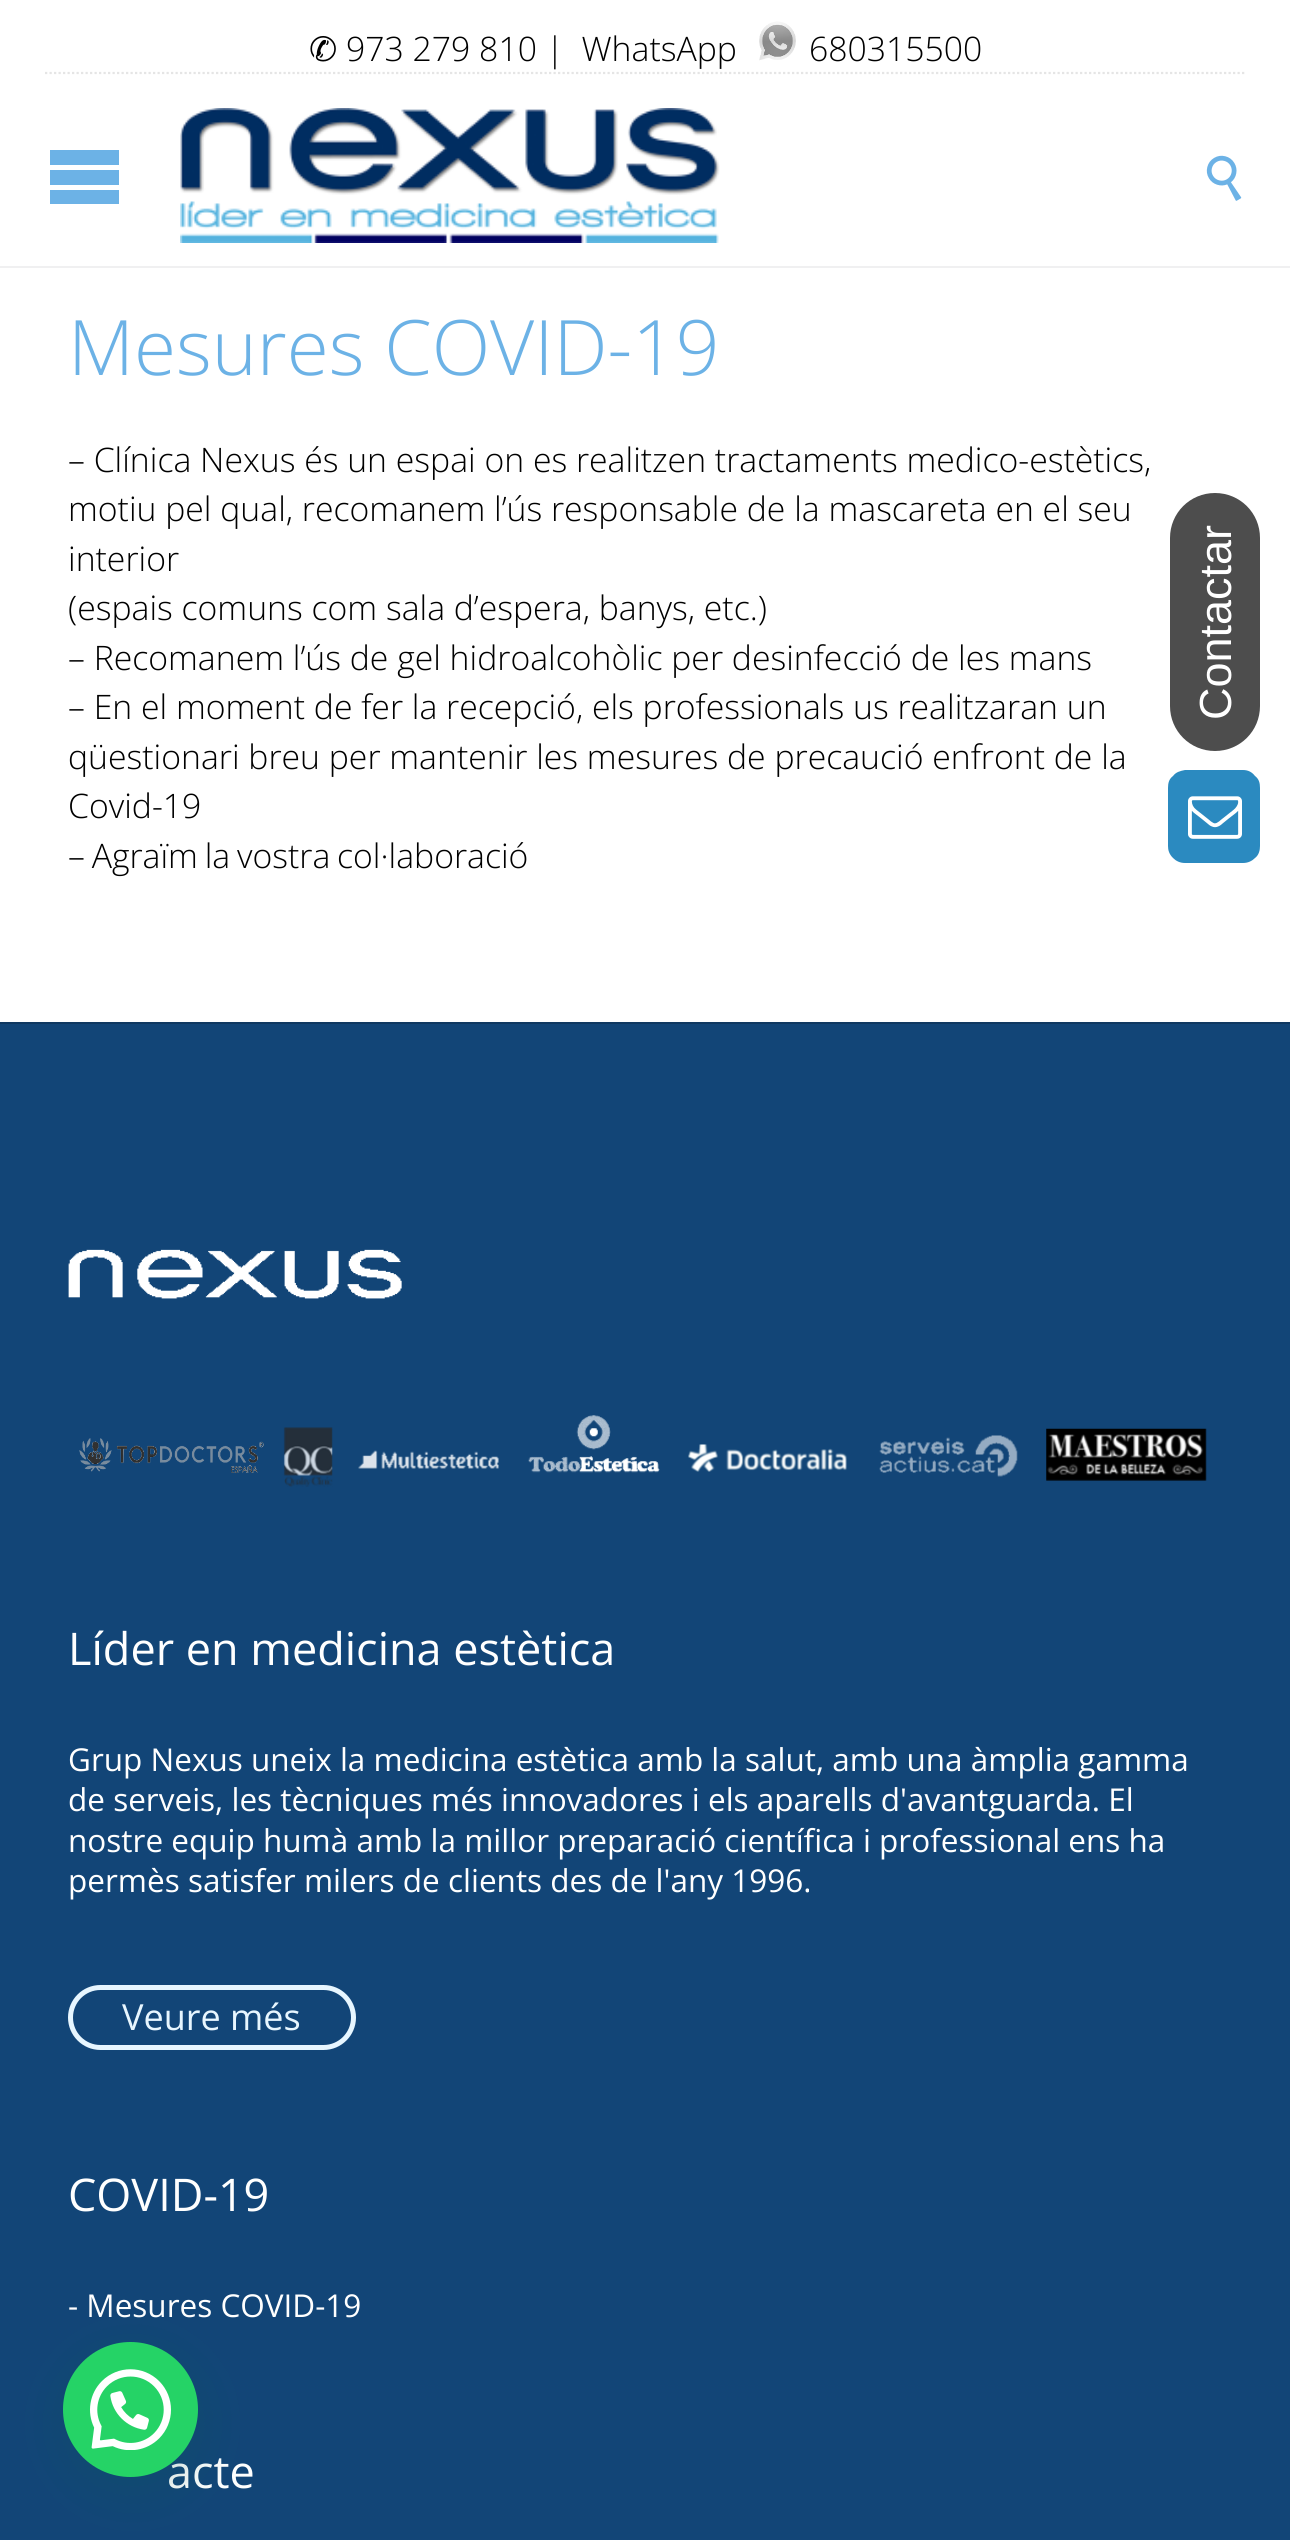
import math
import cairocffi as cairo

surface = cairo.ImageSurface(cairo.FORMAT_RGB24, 1290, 2540)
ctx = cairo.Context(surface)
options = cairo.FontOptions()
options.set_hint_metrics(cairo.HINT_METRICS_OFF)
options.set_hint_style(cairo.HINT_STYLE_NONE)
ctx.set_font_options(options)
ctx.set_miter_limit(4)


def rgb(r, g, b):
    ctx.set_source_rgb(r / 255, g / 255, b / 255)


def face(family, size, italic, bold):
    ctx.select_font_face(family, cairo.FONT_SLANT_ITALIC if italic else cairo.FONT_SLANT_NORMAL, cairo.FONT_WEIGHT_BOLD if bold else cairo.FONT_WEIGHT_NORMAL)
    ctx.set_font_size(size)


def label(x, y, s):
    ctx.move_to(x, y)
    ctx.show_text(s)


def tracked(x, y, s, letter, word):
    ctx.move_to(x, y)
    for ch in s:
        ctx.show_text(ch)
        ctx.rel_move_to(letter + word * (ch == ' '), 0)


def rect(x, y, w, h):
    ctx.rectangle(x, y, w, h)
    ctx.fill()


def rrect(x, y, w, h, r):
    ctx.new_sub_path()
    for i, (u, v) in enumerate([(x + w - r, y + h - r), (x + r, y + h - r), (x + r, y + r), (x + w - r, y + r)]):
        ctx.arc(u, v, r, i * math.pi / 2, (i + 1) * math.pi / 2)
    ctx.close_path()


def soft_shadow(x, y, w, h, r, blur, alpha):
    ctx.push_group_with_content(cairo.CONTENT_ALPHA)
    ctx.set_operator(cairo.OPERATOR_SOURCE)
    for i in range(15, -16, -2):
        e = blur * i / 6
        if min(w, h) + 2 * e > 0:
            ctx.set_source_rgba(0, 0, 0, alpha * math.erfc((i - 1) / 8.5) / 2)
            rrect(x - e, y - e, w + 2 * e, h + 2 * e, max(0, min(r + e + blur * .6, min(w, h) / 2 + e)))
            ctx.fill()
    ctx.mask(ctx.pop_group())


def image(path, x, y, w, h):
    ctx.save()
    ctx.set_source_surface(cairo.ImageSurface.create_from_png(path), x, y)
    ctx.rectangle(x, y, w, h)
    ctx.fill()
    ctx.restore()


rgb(255, 255, 255)
ctx.paint()
rgb(240, 240, 241)
rect(0, 266, 1290, 2)
ctx.new_path()
ctx.move_to(45, 73)
ctx.line_to(1246.5, 73)
rgb(229, 229, 229)
ctx.set_line_width(2.2)
ctx.set_dash([2.25, 2.25])
ctx.stroke()
face('DejaVu Sans', 33.75, 0, 0)
rgb(0, 0, 0)
label(309, 61, '✆')
face('Open Sans Light', 33.75, 0, 0)
label(346, 61, '973 279 810 |  WhatsApp')
image('image0.png', 759, 21, 37, 40)
label(809, 61, '680315500')
image('image1.png', 180, 108, 540, 135)
image('image2.png', 1206, 155, 36, 46)
face('Open Sans Light', 76.5, 0, 0)
rgb(108, 178, 230)
label(68, 375, 'Mesures COVID-19')
face('Open Sans Light', 33.75, 0, 0)
rgb(0, 0, 0)
label(68, 472, '– Clínica Nexus és un espai on es realitzen tractaments medico-estètics,')
label(68, 521, 'motiu pel qual, recomanem l’ús responsable de la mascareta en el seu')
label(68, 571, 'interior')
label(68, 620, '(espais comuns com sala d’espera, banys, etc.)')
label(68, 670, '– Recomanem l’ús de gel hidroalcohòlic per desinfecció de les mans')
label(68, 719, '– En el moment de fer la recepció, els professionals us realitzaran un')
label(68, 769, 'qüestionari breu per mantenir les mesures de precaució enfront de la')
label(68, 818, 'Covid-19')
tracked(68, 868, '– Agraïm la vostra col·laboració', 0, -2)
rgb(18, 69, 119)
rect(0, 1024, 1290, 1516)
rgb(15, 56, 97)
rect(0, 1022, 1290, 2)
image('image3.png', 68, 1249, 334, 50)
image('image4.png', 79, 1438, 185, 35)
image('image5.png', 283, 1427, 50, 60)
image('image6.png', 358, 1450, 141, 19)
image('image7.png', 528, 1415, 132, 58)
image('image8.png', 688, 1444, 159, 28)
image('image9.png', 879, 1435, 139, 42)
image('image10.png', 1046, 1428, 161, 53)
face('Open Sans', 45, 0, 0)
rgb(255, 255, 255)
label(68, 1665, 'Líder en medicina estètica')
face('Open Sans', 31.5, 0, 0)
label(68, 1771, 'Grup Nexus uneix la medicina estètica amb la salut, amb una àmplia gamma')
label(68, 1811, 'de serveis, les tècniques més innovadores i els aparells d\'avantguarda. El')
label(68, 1852, 'nostre equip humà amb la millor preparació científica i professional ens ha')
label(68, 1892, 'permès satisfer milers de clients des de l\'any 1996.')
rrect(70.5, 1987.5, 283, 60, 30)
rgb(231, 246, 255)
ctx.set_line_width(5)
ctx.set_dash([])
ctx.stroke()
face('Open Sans', 36, 0, 0)
label(122, 2030, 'Veure més')
face('Open Sans', 45, 0, 0)
rgb(255, 255, 255)
label(68, 2211, 'COVID-19')
face('Open Sans', 31.5, 0, 0)
label(68, 2317, '- Mesures COVID-19')
face('Open Sans', 45, 0, 0)
label(167, 2488, 'acte')
rgb(108, 178, 230)
ctx.new_path()
ctx.move_to(50, 150)
ctx.line_to(119, 150)
ctx.line_to(119, 165)
ctx.line_to(50, 165)
ctx.close_path()
ctx.move_to(50, 170)
ctx.line_to(119, 170)
ctx.line_to(119, 185)
ctx.line_to(50, 185)
ctx.close_path()
ctx.move_to(50, 190)
ctx.line_to(119, 190)
ctx.line_to(119, 204)
ctx.line_to(50, 204)
ctx.close_path()
ctx.fill()
rgb(77, 77, 77)
ctx.new_path()
ctx.move_to(1170, 706)
ctx.line_to(1170, 538)
ctx.curve_to(1170, 513, 1190, 493, 1215, 493)
ctx.curve_to(1240, 493, 1260, 513, 1260, 538)
ctx.line_to(1260, 706)
ctx.curve_to(1260, 731, 1240, 751, 1215, 751)
ctx.curve_to(1190, 751, 1170, 731, 1170, 706)
ctx.close_path()
ctx.fill()
face('Liberation Sans', 45, 0, 0)
rgb(255, 255, 255)
ctx.save()
ctx.translate(1231, 720)
ctx.rotate(-90 * math.pi / 180)
label(0, 0, 'Contactar')
ctx.restore()
rgb(43, 138, 192)
ctx.new_path()
ctx.move_to(1168, 846)
ctx.line_to(1168, 788)
ctx.curve_to(1168, 783, 1169, 779, 1173, 776)
ctx.curve_to(1176, 772, 1180, 771, 1185, 770)
ctx.line_to(1243, 770)
ctx.curve_to(1248, 770, 1252, 772, 1255, 776)
ctx.curve_to(1259, 779, 1260, 783, 1260, 788)
ctx.line_to(1260, 846)
ctx.curve_to(1260, 850, 1259, 855, 1255, 858)
ctx.curve_to(1252, 861, 1248, 863, 1243, 863)
ctx.line_to(1185, 863)
ctx.curve_to(1180, 863, 1176, 861, 1173, 858)
ctx.curve_to(1169, 854, 1168, 850, 1168, 846)
ctx.close_path()
ctx.fill()
image('image11.png', 1188, 796, 54, 43)
rgb(7, 94, 84)
soft_shadow(65, 2356, 135, 135, 67.5, 27, 0.24)
rgb(37, 211, 102)
ctx.arc(130.5, 2409.5, 67.5, 0, 2 * math.pi)
ctx.fill()
image('image12.png', 90, 2369, 81, 81)
surface.write_to_png('render.png')
